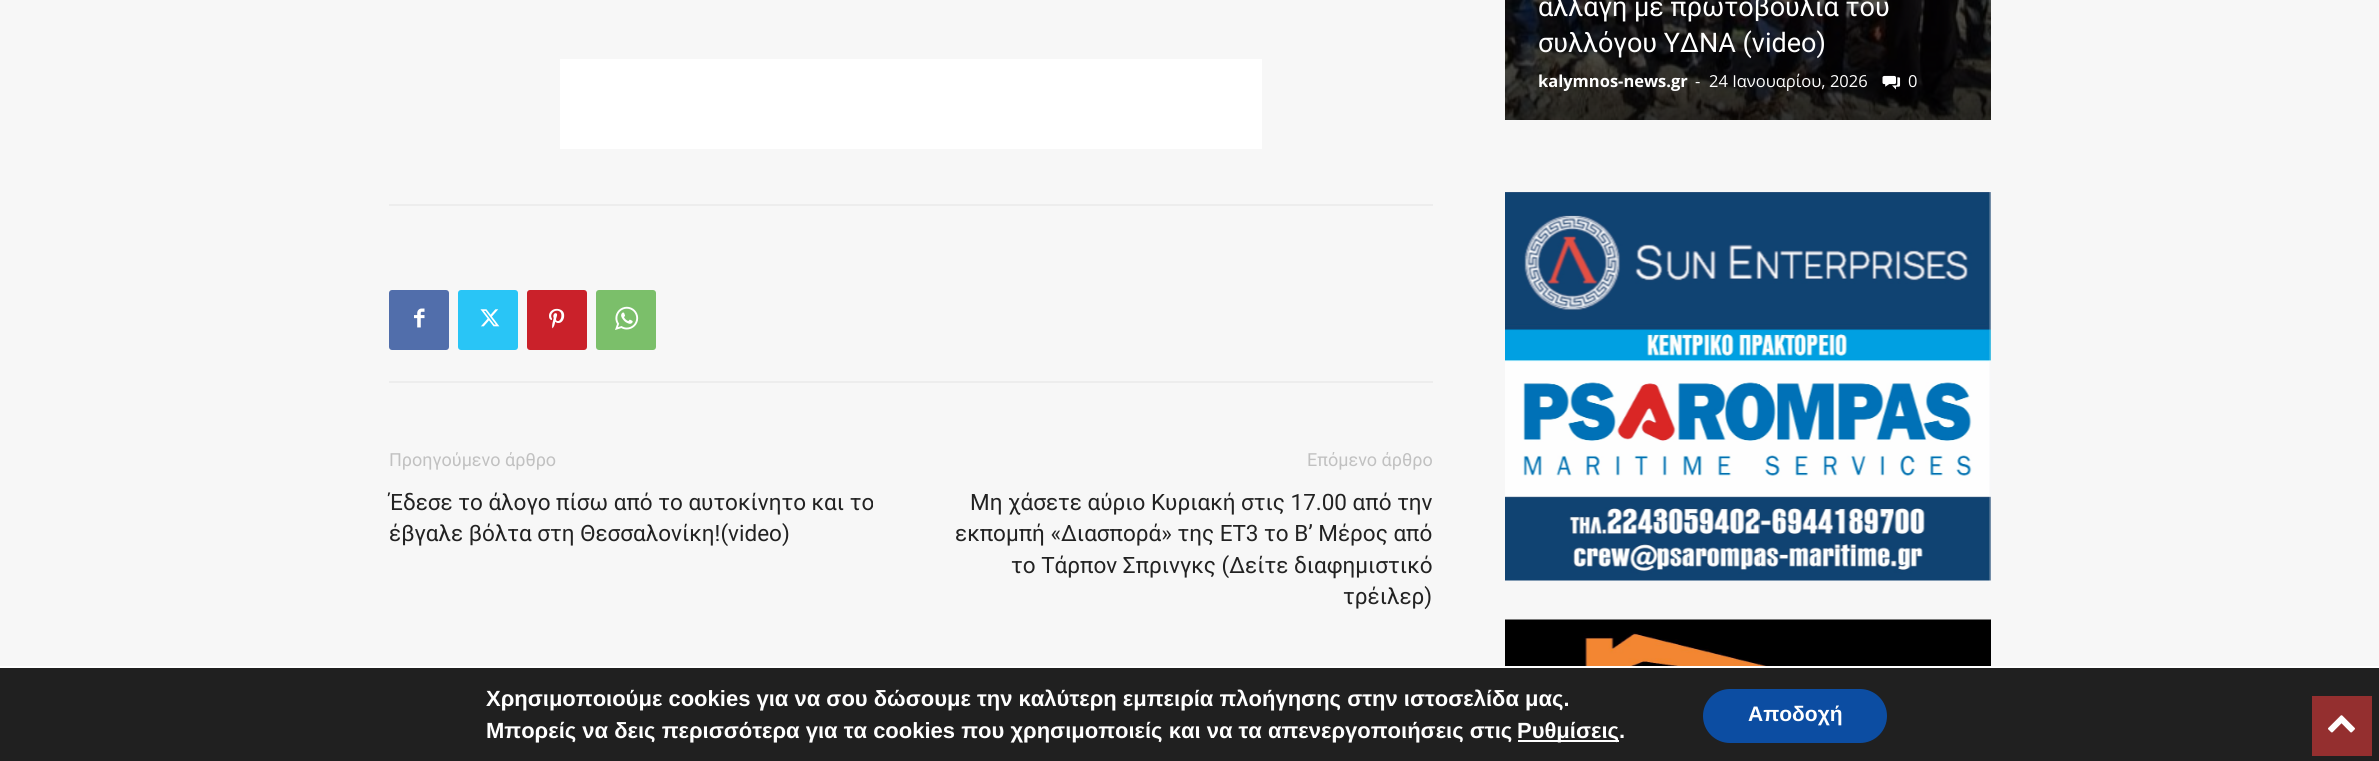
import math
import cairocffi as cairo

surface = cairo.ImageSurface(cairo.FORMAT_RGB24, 2379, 761)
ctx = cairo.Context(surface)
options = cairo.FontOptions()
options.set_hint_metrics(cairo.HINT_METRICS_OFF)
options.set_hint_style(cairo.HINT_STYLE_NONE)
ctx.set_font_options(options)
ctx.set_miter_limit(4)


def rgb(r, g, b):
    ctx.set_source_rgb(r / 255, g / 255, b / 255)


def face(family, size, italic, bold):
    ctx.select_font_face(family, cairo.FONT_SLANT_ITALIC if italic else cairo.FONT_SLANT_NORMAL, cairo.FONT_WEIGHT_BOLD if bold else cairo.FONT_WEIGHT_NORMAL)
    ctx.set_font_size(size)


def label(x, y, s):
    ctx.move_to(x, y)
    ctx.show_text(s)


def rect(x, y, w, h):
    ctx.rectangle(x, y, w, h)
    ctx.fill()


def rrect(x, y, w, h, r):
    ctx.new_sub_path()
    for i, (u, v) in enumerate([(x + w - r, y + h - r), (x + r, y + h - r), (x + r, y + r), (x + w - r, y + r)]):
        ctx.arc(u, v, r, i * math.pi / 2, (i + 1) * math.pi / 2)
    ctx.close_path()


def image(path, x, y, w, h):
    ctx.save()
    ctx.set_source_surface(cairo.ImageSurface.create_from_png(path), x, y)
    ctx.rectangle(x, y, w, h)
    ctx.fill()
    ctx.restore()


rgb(247, 247, 247)
ctx.paint()
image('image0.png', 1505, 0, 486, 120)
face('Roboto', 27, 0, 0)
rgb(255, 255, 255)
label(1538, 16, 'αλλαγή με πρωτοβουλία του')
label(1538, 52, 'συλλόγου ΥΔΝΑ (video)')
face('Open Sans', 16.5, 0, 1)
label(1538, 87, 'kalymnos-news.gr')
face('Open Sans', 16.5, 0, 0)
label(1695, 87, '-')
label(1709, 87, '24 Ιανουαρίου, 2026')
image('image1.png', 1882, 75, 19, 15)
label(1908, 87, '0')
image('image2.png', 1505, 192, 486, 389)
image('image3.png', 1505, 619, 486, 47)
rect(560, 59, 702, 90)
rgb(237, 237, 237)
rect(389, 204, 1044, 2)
rect(389, 381, 1044, 2)
rgb(81, 110, 171)
rrect(389, 290, 60, 60, 3)
ctx.fill()
image('image4.png', 414, 308, 11, 20)
rgb(41, 197, 246)
rrect(458, 290, 60, 60, 3)
ctx.fill()
image('image5.png', 480, 309, 20, 18)
rgb(202, 33, 42)
rrect(527, 290, 60, 60, 3)
ctx.fill()
image('image6.png', 549, 308, 16, 21)
rgb(123, 191, 106)
rrect(596, 290, 60, 60, 3)
ctx.fill()
image('image7.png', 615, 306, 24, 24)
face('Roboto', 18, 0, 0)
rgb(193, 193, 193)
label(389, 466, 'Προηγούμενο άρθρο')
face('Roboto', 22.5, 0, 0)
rgb(34, 34, 34)
label(389, 510, 'Έδεσε το άλογο πίσω από το αυτοκίνητο και το')
label(389, 541, 'έβγαλε βόλτα στη Θεσσαλονίκη!(video)')
face('Roboto', 18, 0, 0)
rgb(193, 193, 193)
label(1307, 466, 'Επόμενο άρθρο')
face('Roboto', 22.5, 0, 0)
rgb(34, 34, 34)
label(970, 510, 'Μη χάσετε αύριο Κυριακή στις 17.00 από την')
label(955, 541, 'εκπομπή «Διασπορά» της ΕΤ3 το Β’ Μέρος από')
label(1011, 573, 'το Τάρπον Σπρινγκς (Δείτε διαφημιστικό')
label(1343, 604, 'τρέιλερ)')
rgb(32, 32, 32)
rect(0, 668, 2379, 93)
rgb(255, 255, 255)
rect(0, 666, 2379, 2)
face('Liberation Sans', 22, 0, 1)
label(486, 706, 'Χρησιμοποιούμε cookies για να σου δώσουμε την καλύτερη εμπειρία πλοήγησης στην ιστοσελίδα μας.')
label(486, 738, 'Μπορείς να δεις περισσότερα για τα cookies που χρησιμοποιείς και να τα απενεργοποιήσεις στις')
rect(1518, 740, 101, 2)
label(1517, 738, 'Ρυθμίσεις.')
rgb(12, 77, 162)
rrect(1703, 689, 184, 54, 27)
ctx.fill()
face('Liberation Sans', 21, 0, 1)
rgb(255, 255, 255)
label(1748, 721, 'Αποδοχή')
rgb(148, 47, 47)
rect(2312, 696, 60, 60)
image('image8.png', 2328, 715, 27, 18)
surface.write_to_png('render.png')
